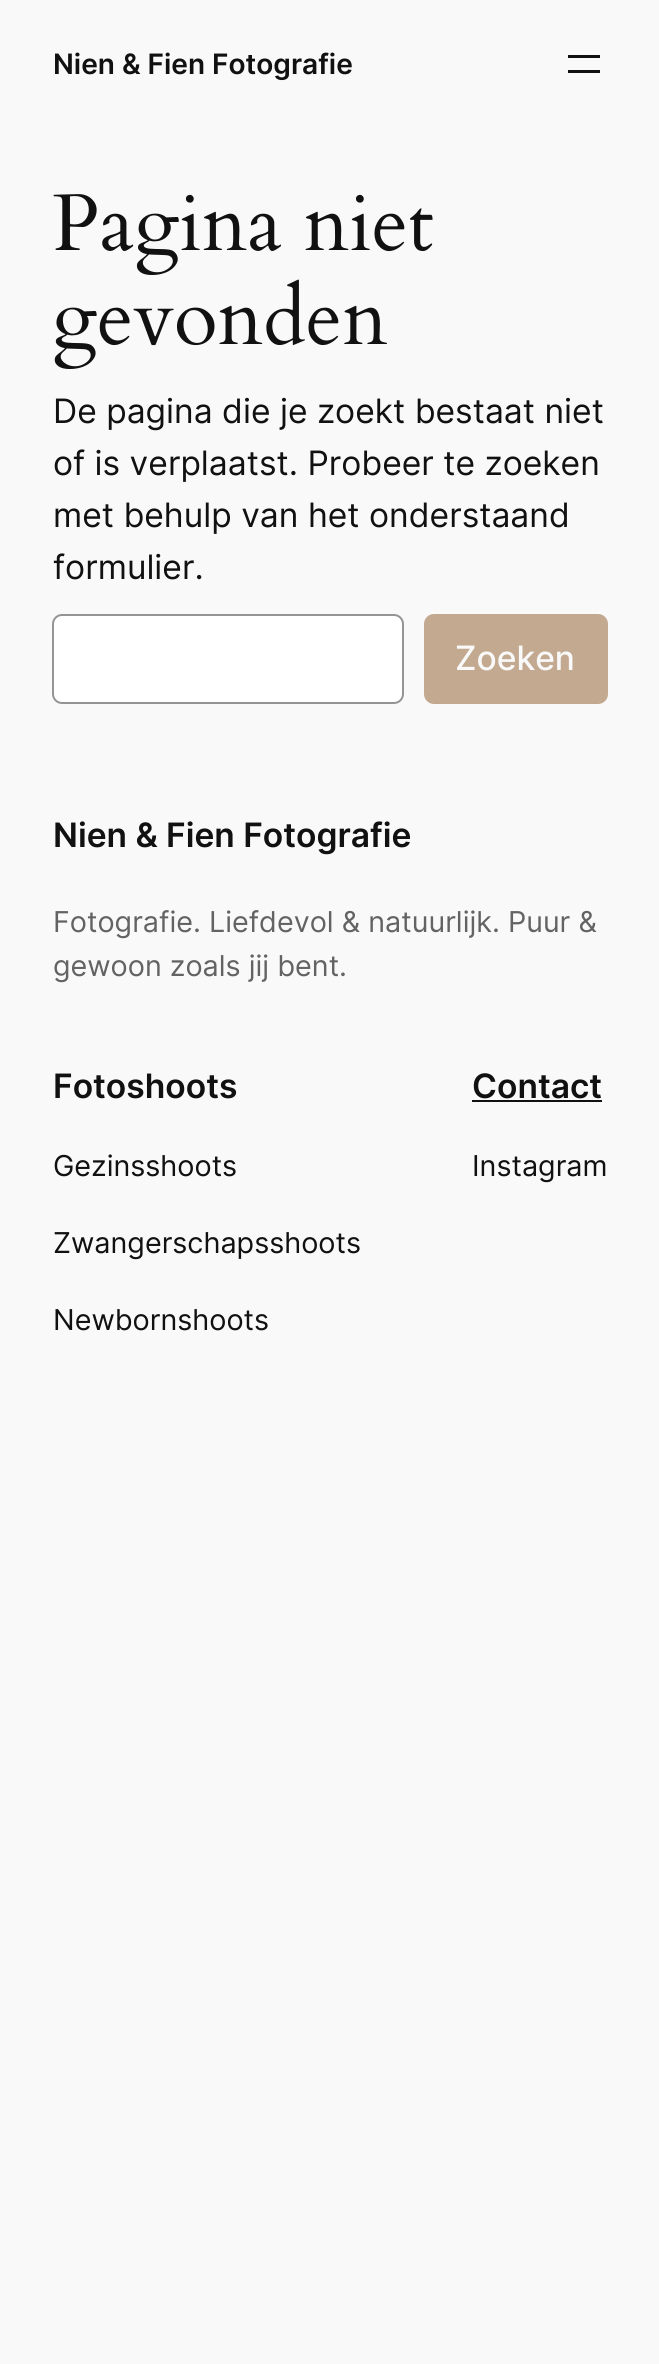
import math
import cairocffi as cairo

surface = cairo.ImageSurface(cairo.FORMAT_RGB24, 659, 2364)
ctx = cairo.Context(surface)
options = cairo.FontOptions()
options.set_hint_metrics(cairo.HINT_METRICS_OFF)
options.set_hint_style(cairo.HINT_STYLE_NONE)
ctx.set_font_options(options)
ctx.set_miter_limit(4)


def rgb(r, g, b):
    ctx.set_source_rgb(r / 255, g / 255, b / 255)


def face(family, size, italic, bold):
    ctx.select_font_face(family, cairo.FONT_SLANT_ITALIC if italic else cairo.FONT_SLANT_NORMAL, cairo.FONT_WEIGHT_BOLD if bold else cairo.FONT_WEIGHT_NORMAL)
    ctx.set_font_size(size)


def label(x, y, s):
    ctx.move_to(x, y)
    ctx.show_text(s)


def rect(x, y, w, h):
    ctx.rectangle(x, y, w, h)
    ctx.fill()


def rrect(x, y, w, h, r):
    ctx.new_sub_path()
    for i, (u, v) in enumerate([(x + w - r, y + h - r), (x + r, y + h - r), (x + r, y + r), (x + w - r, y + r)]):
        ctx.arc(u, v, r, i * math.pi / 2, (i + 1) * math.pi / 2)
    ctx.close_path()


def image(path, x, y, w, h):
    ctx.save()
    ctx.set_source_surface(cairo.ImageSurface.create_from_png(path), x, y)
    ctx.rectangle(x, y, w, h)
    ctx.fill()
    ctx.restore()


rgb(249, 249, 249)
ctx.paint()
face('Inter SemiBold', 28.1, 0, 0)
rgb(17, 17, 17)
label(53, 74, 'Nien & Fien Fotografie')
rect(568, 55, 32, 3)
rect(568, 70, 32, 3)
image('image0.png', 53, 194, 380, 81)
image('image1.png', 54, 279, 333, 90)
face('Inter', 33.6, 0, 0)
label(53, 423, 'De pagina die je zoekt bestaat niet')
label(53, 475, 'of is verplaatst. Probeer te zoeken')
label(53, 527, 'met behulp van het onderstaand')
label(53, 579, 'formulier.')
rgb(255, 255, 255)
rrect(53, 615, 350, 88, 9)
ctx.fill_preserve()
rgb(148, 148, 148)
ctx.stroke()
rgb(194, 169, 144)
rrect(424, 614, 184, 90, 10)
ctx.fill()
face('Inter Medium', 33.6, 0, 0)
rgb(249, 249, 249)
label(455, 670, 'Zoeken')
face('Inter SemiBold', 33.6, 0, 0)
rgb(17, 17, 17)
label(53, 847, 'Nien & Fien Fotografie')
face('Inter', 28.75, 0, 0)
rgb(99, 99, 99)
label(53, 932, 'Fotografie. Liefdevol & natuurlijk. Puur &')
label(53, 976, 'gewoon zoals jij bent.')
face('Inter SemiBold', 33.6, 0, 0)
rgb(17, 17, 17)
label(53, 1098, 'Fotoshoots')
face('Inter', 28.75, 0, 0)
label(53, 1176, 'Gezinsshoots')
label(53, 1253, 'Zwangerschapsshoots')
label(53, 1330, 'Newbornshoots')
face('Inter SemiBold', 33.6, 0, 0)
label(472, 1098, 'Contact')
rect(472, 1100, 130, 2)
face('Inter', 28.75, 0, 0)
label(472, 1176, 'Instagram')
surface.write_to_png('render.png')
